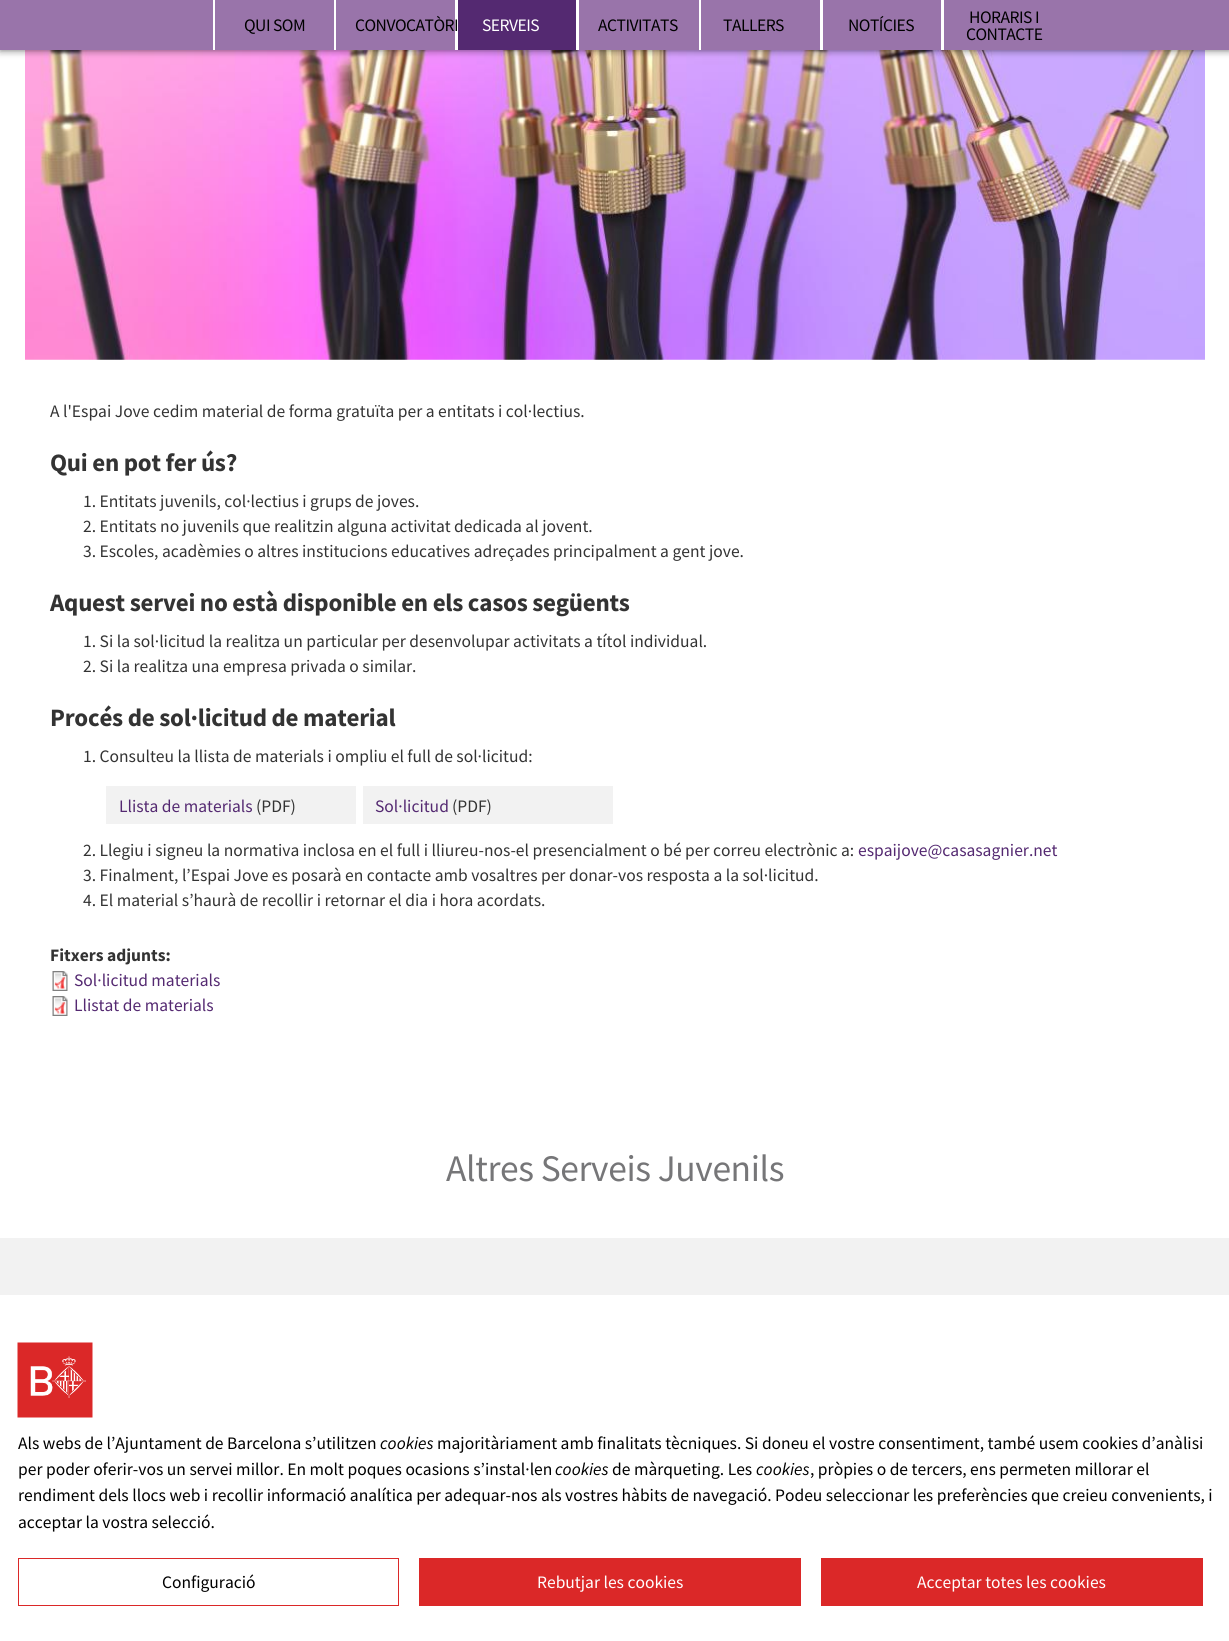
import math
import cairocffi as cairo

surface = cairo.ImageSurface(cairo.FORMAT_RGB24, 1229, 1641)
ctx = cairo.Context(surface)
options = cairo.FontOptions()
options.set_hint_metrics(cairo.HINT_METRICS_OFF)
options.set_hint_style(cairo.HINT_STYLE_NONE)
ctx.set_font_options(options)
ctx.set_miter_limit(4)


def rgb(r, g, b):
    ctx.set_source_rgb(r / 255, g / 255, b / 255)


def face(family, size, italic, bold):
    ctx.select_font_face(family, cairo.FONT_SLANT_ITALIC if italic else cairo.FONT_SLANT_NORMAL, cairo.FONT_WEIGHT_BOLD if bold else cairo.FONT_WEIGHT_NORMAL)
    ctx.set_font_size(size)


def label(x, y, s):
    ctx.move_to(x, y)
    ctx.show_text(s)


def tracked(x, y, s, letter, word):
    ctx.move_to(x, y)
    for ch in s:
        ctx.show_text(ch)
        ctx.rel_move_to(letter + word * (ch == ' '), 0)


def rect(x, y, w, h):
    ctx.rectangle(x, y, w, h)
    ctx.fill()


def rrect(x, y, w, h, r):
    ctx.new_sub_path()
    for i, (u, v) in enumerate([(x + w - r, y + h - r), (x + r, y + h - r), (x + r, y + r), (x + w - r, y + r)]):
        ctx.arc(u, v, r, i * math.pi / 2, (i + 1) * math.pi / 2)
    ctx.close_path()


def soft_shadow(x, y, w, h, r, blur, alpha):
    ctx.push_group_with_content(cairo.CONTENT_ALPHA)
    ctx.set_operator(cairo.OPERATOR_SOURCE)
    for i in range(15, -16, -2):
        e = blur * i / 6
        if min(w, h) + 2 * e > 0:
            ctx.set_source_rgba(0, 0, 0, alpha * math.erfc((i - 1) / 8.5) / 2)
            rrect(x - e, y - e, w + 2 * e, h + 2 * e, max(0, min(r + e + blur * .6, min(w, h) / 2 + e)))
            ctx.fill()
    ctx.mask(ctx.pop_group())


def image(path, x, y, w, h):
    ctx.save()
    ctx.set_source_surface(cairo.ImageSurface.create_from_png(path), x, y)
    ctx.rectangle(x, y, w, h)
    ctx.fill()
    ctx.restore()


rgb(255, 255, 255)
ctx.paint()
image('image0.png', 25, 50, 1180, 310)
rgb(0, 0, 0)
soft_shadow(0, 0, 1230, 50, 0, 4, 0.6)
rgb(153, 116, 170)
rect(0, 0, 1229, 50)
rgb(255, 255, 255)
rect(213, 0, 2, 50)
rect(334, 0, 2, 50)
face('Source Sans Pro', 17.5, 0, 0)
rgb(0, 0, 0)
tracked(244, 31, 'QUI SOM', -0.5, 0)
rgb(255, 255, 255)
rect(455, 0, 3, 50)
rgb(0, 0, 0)
tracked(355, 31, 'CONVOCATÒRI', -0.5, 0)
rgb(84, 41, 113)
rect(458, 0, 118, 50)
rgb(255, 255, 255)
rect(576, 0, 3, 50)
tracked(482, 31, 'SERVEIS', -0.5, 0)
rect(699, 0, 2, 50)
rgb(0, 0, 0)
tracked(598, 31, 'ACTIVITATS', -0.5, 0)
rgb(255, 255, 255)
rect(820, 0, 3, 50)
rgb(0, 0, 0)
tracked(723, 31, 'TALLERS', -0.5, 0)
rgb(255, 255, 255)
rect(941, 0, 3, 50)
rgb(0, 0, 0)
tracked(848, 31, 'NOTÍCIES', -0.5, 0)
tracked(969, 23, 'HORARIS I', -0.5, 0)
tracked(966, 40, 'CONTACTE', -0.5, 0)
rgb(51, 51, 51)
label(50, 417, 'A l\'Espai Jove cedim material de forma gratuïta per a entitats i col·lectius.')
face('Source Sans Pro', 25, 0, 1)
tracked(50, 471, 'Qui en pot fer ús?', -0.25, 0)
face('Source Sans Pro', 17.5, 0, 0)
label(83, 507, '1. Entitats juvenils, col·lectius i grups de joves.')
label(83, 532, '2. Entitats no juvenils que realitzin alguna activitat dedicada al jovent.')
label(83, 557, '3. Escoles, acadèmies o altres institucions educatives adreçades principalment a gent jove.')
face('Source Sans Pro', 25, 0, 1)
tracked(50, 611, 'Aquest servei no està disponible en els casos següents', -0.25, 0)
face('Source Sans Pro', 17.5, 0, 0)
label(83, 647, '1. Si la sol·licitud la realitza un particular per desenvolupar activitats a títol individual.')
label(83, 672, '2. Si la realitza una empresa privada o similar.')
face('Source Sans Pro', 25, 0, 1)
tracked(50, 726, 'Procés de sol·licitud de material', -0.25, 0)
face('Source Sans Pro', 17.5, 0, 0)
label(83, 762, '1. Consulteu la llista de materials i ompliu el full de sol·licitud:')
rgb(242, 242, 242)
rect(106, 786, 250, 38)
rgb(84, 41, 113)
label(119, 812, 'Llista de materials')
rgb(51, 51, 51)
label(256, 812, '(PDF)')
rgb(242, 242, 242)
rect(363, 786, 250, 38)
rgb(84, 41, 113)
label(375, 812, 'Sol·licitud')
rgb(51, 51, 51)
label(452, 812, '(PDF)')
label(83, 856, '2. Llegiu i signeu la normativa inclosa en el full i lliureu-nos-el presencialment o bé per correu electrònic a:')
rgb(84, 41, 113)
label(858, 856, 'espaijove@casasagnier.net')
rgb(51, 51, 51)
label(83, 881, '3. Finalment, l’Espai Jove es posarà en contacte amb vosaltres per donar-vos resposta a la sol·licitud.')
label(83, 906, '4. El material s’haurà de recollir i retornar el dia i hora acordats.')
face('Source Sans Pro', 17.5, 0, 1)
label(50, 961, 'Fitxers adjunts:')
image('image1.png', 52, 971, 16, 20)
face('Source Sans Pro', 17.5, 0, 0)
rgb(84, 41, 113)
label(74, 986, 'Sol·licitud materials')
image('image1.png', 52, 996, 16, 20)
label(74, 1011, 'Llistat de materials')
face('Source Sans Pro', 37.5, 0, 0)
rgb(118, 118, 120)
tracked(446, 1181, 'Altres Serveis Juvenils', -0.4, 0)
rgb(242, 242, 242)
rect(0, 1238, 1229, 57)
image('image2.png', 17, 1342, 76, 76)
face('Source Sans Pro', 17.5, 0, 0)
rgb(0, 0, 0)
label(18, 1449, 'Als webs de l’Ajuntament de Barcelona s’utilitzen')
face('Source Sans Pro', 17.5, 1, 0)
label(380, 1449, 'cookies')
face('Source Sans Pro', 17.5, 0, 0)
label(437, 1449, 'majoritàriament amb finalitats tècniques. Si doneu el vostre consentiment, també usem cookies d’anàlisi')
label(18, 1475, 'per poder oferir-vos un servei millor. En molt poques ocasions s’instal·len')
face('Source Sans Pro', 17.5, 1, 0)
label(555, 1475, 'cookies')
face('Source Sans Pro', 17.5, 0, 0)
label(612, 1475, 'de màrqueting. Les')
face('Source Sans Pro', 17.5, 1, 0)
label(756, 1475, 'cookies')
face('Source Sans Pro', 17.5, 0, 0)
label(810, 1475, ', pròpies o de tercers, ens permeten millorar el')
label(18, 1501, 'rendiment dels llocs web i recollir informació analítica per adequar-nos als vostres hàbits de navegació. Podeu seleccionar les preferències que creieu convenients, i')
label(18, 1528, 'acceptar la vostra selecció.')
ctx.rectangle(18.5, 1558.5, 380, 47)
rgb(219, 40, 40)
ctx.set_line_width(1)
ctx.stroke()
rgb(0, 0, 0)
label(162, 1588, 'Configuració')
rgb(219, 40, 40)
rect(419, 1558, 382, 48)
rgb(255, 255, 255)
label(537, 1588, 'Rebutjar les cookies')
rgb(219, 40, 40)
rect(821, 1558, 382, 48)
rgb(255, 255, 255)
label(917, 1588, 'Acceptar totes les cookies')
surface.write_to_png('render.png')
